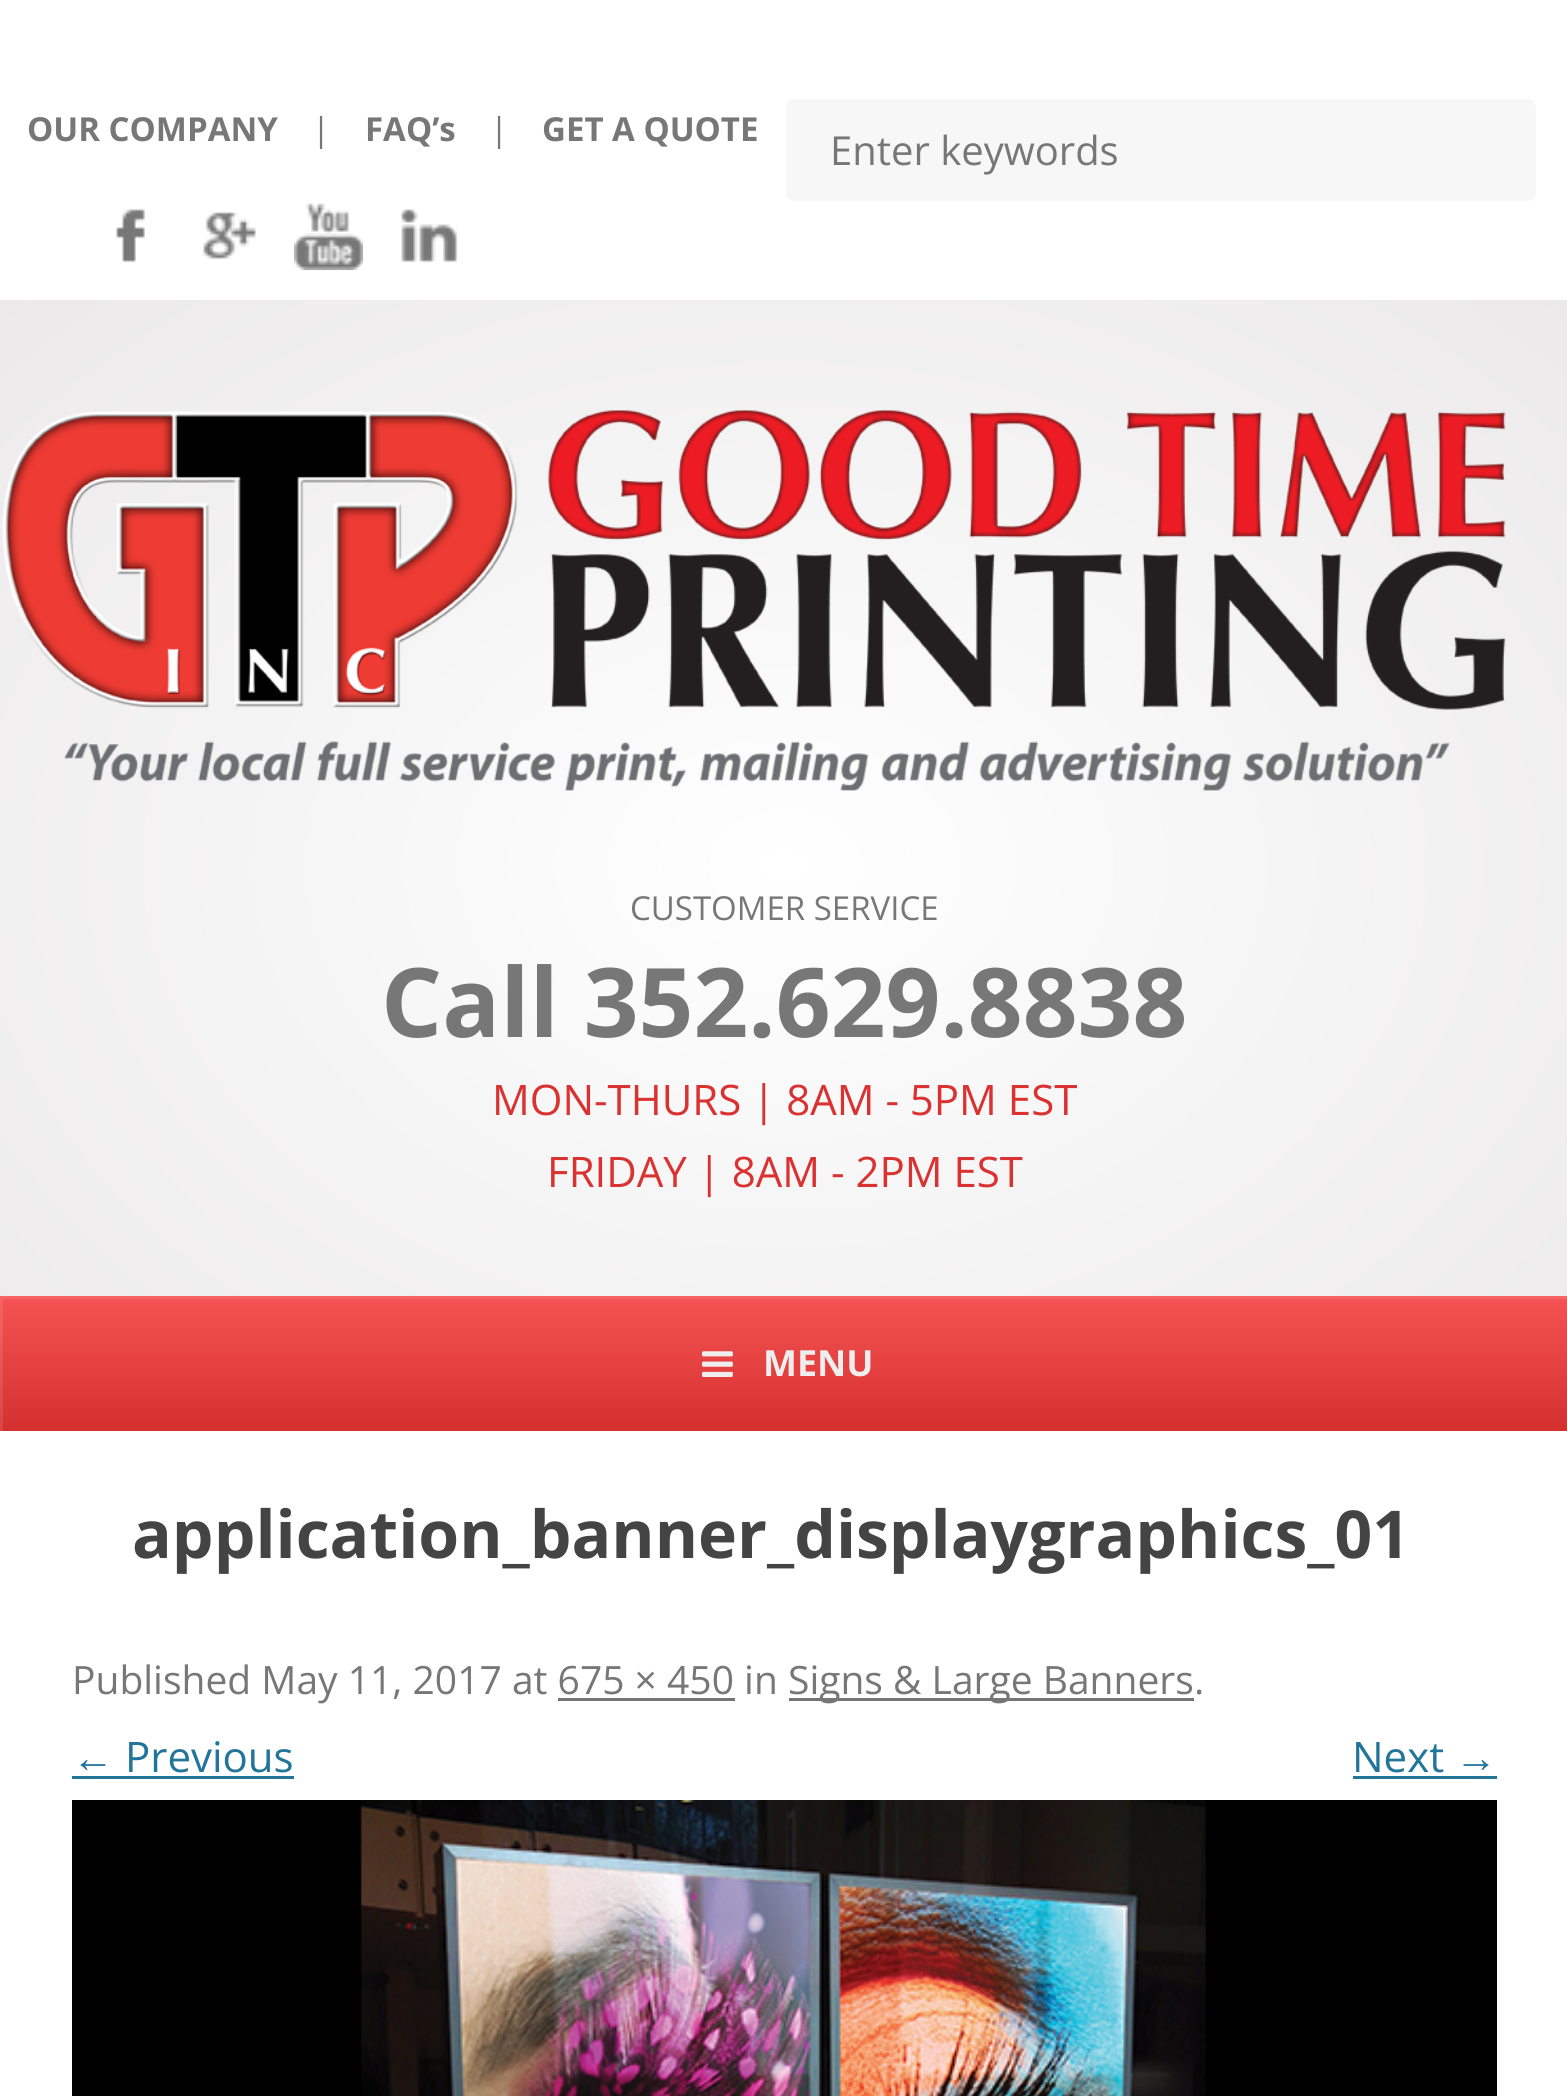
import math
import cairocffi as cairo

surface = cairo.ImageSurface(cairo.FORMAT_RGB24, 1567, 2096)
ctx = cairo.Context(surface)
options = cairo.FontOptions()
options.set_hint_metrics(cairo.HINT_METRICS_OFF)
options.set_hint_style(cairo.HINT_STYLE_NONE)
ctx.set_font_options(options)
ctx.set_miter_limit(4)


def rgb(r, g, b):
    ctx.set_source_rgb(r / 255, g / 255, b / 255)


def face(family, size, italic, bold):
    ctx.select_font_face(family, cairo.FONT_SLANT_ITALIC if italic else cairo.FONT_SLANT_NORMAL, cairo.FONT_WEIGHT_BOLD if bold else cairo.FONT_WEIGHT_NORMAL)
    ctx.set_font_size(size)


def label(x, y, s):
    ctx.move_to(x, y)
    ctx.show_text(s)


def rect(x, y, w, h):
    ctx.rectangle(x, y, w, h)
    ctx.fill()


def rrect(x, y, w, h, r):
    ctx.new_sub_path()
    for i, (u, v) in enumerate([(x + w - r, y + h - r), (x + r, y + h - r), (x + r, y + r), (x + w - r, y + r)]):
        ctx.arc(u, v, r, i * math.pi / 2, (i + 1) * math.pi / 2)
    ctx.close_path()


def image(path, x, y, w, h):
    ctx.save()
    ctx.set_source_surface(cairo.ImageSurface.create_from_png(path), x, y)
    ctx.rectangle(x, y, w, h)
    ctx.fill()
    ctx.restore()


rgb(255, 255, 255)
ctx.paint()
face('Open Sans', 33, 0, 1)
rgb(119, 119, 119)
label(27, 141, 'OUR COMPANY')
face('Open Sans', 33, 0, 0)
label(312, 141, '|')
face('Open Sans', 33, 0, 1)
label(365, 141, 'FAQ’s')
face('Open Sans', 33, 0, 0)
label(490, 141, '|')
face('Open Sans', 33, 0, 1)
label(542, 141, 'GET A QUOTE')
rgb(247, 247, 247)
rrect(786, 99, 750, 102, 9)
ctx.fill()
face('Open Sans', 40, 0, 0)
rgb(119, 119, 119)
label(830, 165, 'Enter keywords')
image('image0.png', 116, 209, 29, 53)
image('image1.png', 203, 212, 53, 47)
image('image2.png', 294, 203, 69, 67)
image('image3.png', 401, 209, 57, 53)
gradient = cairo.RadialGradient(0, 0, 0, 0, 0, 1)
gradient.set_matrix(cairo.Matrix(1 / 1109, 0, 0, 1 / 800, -1 * 785 / 1109, -1 * 866 / 800))
gradient.add_color_stop_rgba(0, 1, 1, 1, 1)
gradient.add_color_stop_rgba(1, 0.922, 0.914, 0.914, 1)
ctx.set_source(gradient)
rect(0, 300, 1567, 996)
image('image4.png', 2, 410, 1504, 381)
face('Open Sans', 33, 0, 0)
rgb(119, 119, 119)
label(630, 920, 'CUSTOMER SERVICE')
face('Open Sans', 96, 0, 1)
label(381, 1037, 'Call 352.629.8838')
face('Open Sans', 42, 0, 0)
rgb(218, 49, 49)
label(492, 1115, 'MON-THURS | 8AM - 5PM EST')
label(547, 1187, 'FRIDAY | 8AM - 2PM EST')
gradient = cairo.LinearGradient(785, 1296, 785, 1431)
gradient.add_color_stop_rgba(0, 0.961, 0.325, 0.325, 1)
gradient.add_color_stop_rgba(1, 0.835, 0.188, 0.188, 1)
ctx.set_source(gradient)
rect(0, 1296, 1567, 135)
ctx.save()
ctx.rectangle(0, 1296, 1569, 135)
ctx.clip()
ctx.set_source_rgba(1, 1, 1, 0.1)
ctx.set_fill_rule(cairo.FILL_RULE_EVEN_ODD)
ctx.new_path()
ctx.move_to(-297, 999)
ctx.line_to(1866, 999)
ctx.line_to(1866, 1728)
ctx.line_to(-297, 1728)
ctx.close_path()
ctx.move_to(3, 1299)
ctx.line_to(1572, 1299)
ctx.line_to(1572, 1434)
ctx.line_to(3, 1434)
ctx.close_path()
ctx.fill()
ctx.restore()
image('image5.png', 702, 1351, 31, 26)
face('Open Sans', 36, 0, 1)
rgb(238, 238, 238)
label(763, 1376, 'MENU')
face('Open Sans', 66, 0, 1)
rgb(68, 68, 68)
label(132, 1558, 'application_banner_displaygraphics_01')
face('Open Sans', 39, 0, 0)
rgb(119, 119, 119)
label(72, 1694, 'Published May 11, 2017 at 675 × 450 in')
rgb(117, 117, 117)
rect(789, 1698, 405, 3)
rgb(119, 119, 119)
label(788, 1694, 'Signs & Large Banners.')
rgb(117, 117, 117)
rect(558, 1698, 177, 3)
face('Liberation Sans', 42, 0, 0)
rgb(33, 117, 155)
label(72, 1772, '←')
rect(72, 1776, 222, 3)
face('Open Sans', 42, 0, 0)
label(125, 1772, 'Previous')
label(1352, 1772, 'Next')
face('Liberation Sans', 42, 0, 0)
label(1455, 1772, '→')
rect(1353, 1776, 144, 3)
image('image6.png', 72, 1800, 1425, 296)
surface.write_to_png('render.png')
